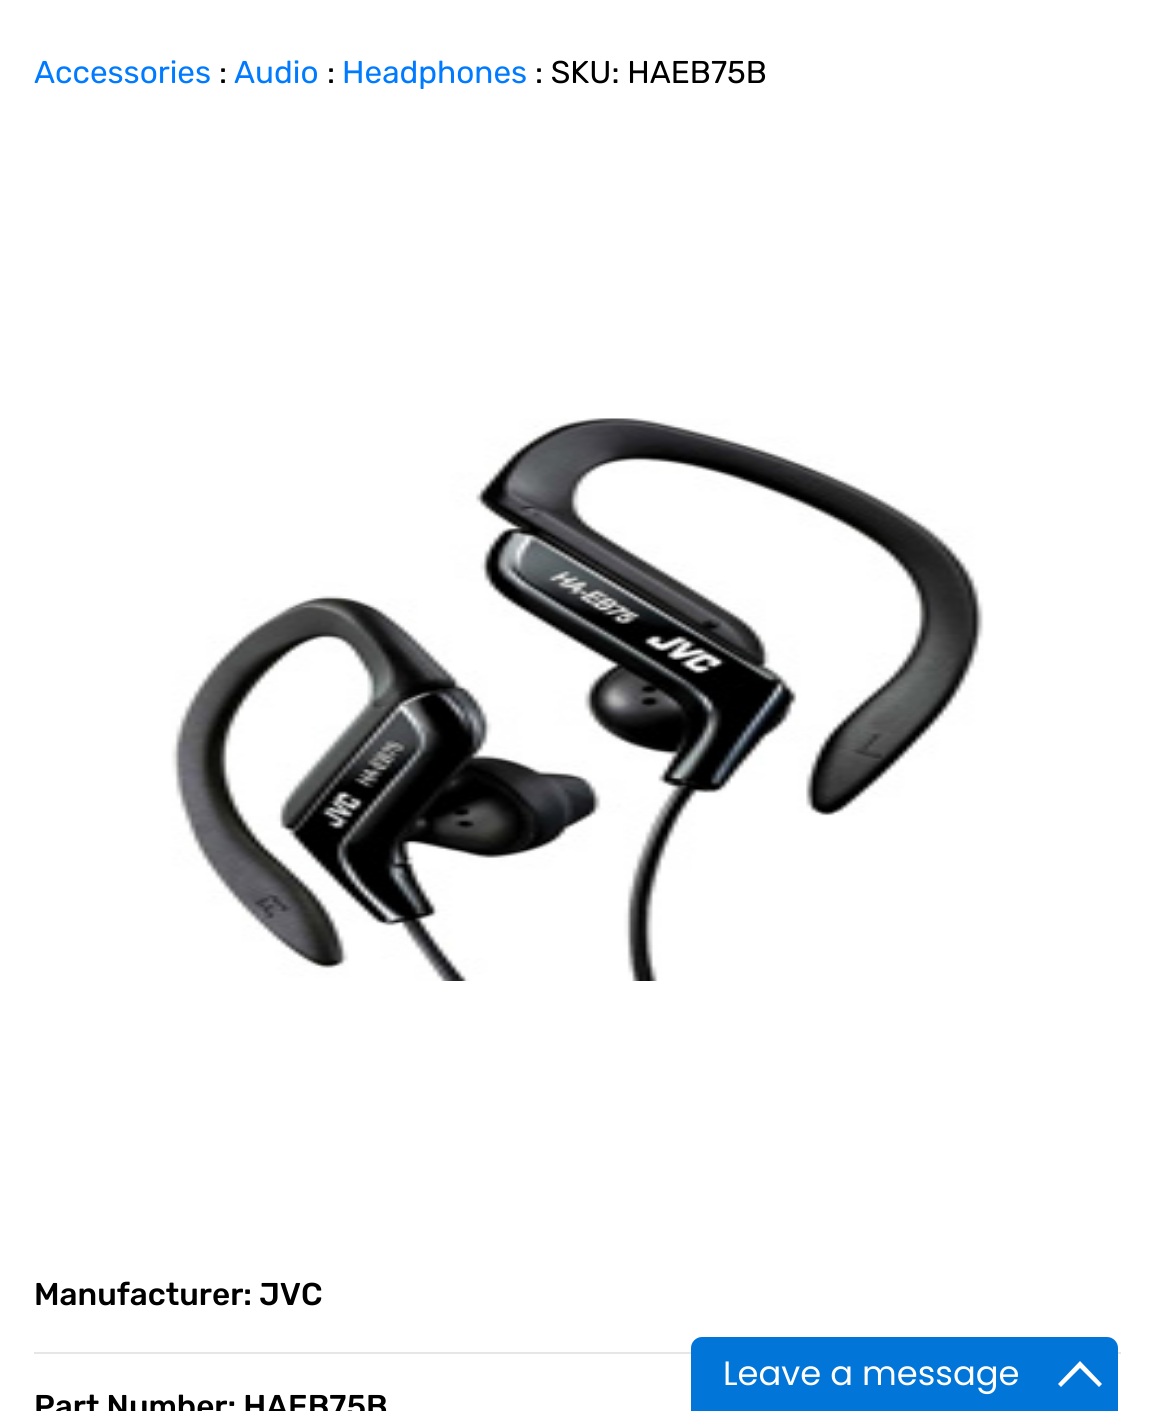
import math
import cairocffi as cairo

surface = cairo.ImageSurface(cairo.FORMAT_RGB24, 1154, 1411)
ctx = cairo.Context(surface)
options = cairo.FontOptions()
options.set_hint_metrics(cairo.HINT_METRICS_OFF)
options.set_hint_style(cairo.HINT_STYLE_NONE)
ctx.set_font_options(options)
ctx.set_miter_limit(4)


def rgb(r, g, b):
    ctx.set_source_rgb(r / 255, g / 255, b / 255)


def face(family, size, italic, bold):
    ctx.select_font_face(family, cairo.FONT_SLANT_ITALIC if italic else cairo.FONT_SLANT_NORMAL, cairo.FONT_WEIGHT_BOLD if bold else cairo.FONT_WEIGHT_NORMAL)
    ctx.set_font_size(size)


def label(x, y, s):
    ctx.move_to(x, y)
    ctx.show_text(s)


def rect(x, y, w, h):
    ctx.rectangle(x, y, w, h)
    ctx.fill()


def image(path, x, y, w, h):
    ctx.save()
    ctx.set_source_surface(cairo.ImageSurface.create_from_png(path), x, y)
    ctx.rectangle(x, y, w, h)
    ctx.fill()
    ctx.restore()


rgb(255, 255, 255)
ctx.paint()
face('Rubik', 31.5, 0, 0)
rgb(0, 123, 255)
label(34, 83, 'Accessories')
rgb(0, 0, 0)
label(219, 83, ':')
rgb(0, 123, 255)
label(234, 83, 'Audio')
rgb(0, 0, 0)
label(327, 83, ':')
rgb(0, 123, 255)
label(342, 83, 'Headphones')
rgb(0, 0, 0)
label(535, 83, ': SKU: HAEB75B')
image('image0.png', 171, 418, 813, 563)
face('Rubik Medium', 31.5, 0, 0)
label(34, 1305, 'Manufacturer: JVC')
rgb(230, 230, 230)
rect(34, 1352, 1087, 2)
rgb(0, 0, 0)
label(34, 1417, 'Part Number: HAEB75B')
rgb(2, 117, 216)
ctx.new_path()
ctx.move_to(702, 1337)
ctx.line_to(1107, 1337)
ctx.curve_to(1113, 1337, 1118, 1342, 1118, 1348)
ctx.line_to(1118, 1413)
ctx.line_to(691, 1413)
ctx.line_to(691, 1348)
ctx.curve_to(691, 1342, 696, 1337, 702, 1337)
ctx.close_path()
ctx.fill()
face('Poppins', 33.75, 0, 0)
rgb(255, 255, 255)
label(723, 1385, 'Leave a message')
ctx.new_path()
ctx.move_to(1080, 1361)
ctx.line_to(1102, 1384)
ctx.line_to(1099, 1387)
ctx.line_to(1080, 1368)
ctx.line_to(1061, 1387)
ctx.line_to(1058, 1384)
ctx.close_path()
ctx.fill()
surface.write_to_png('render.png')
